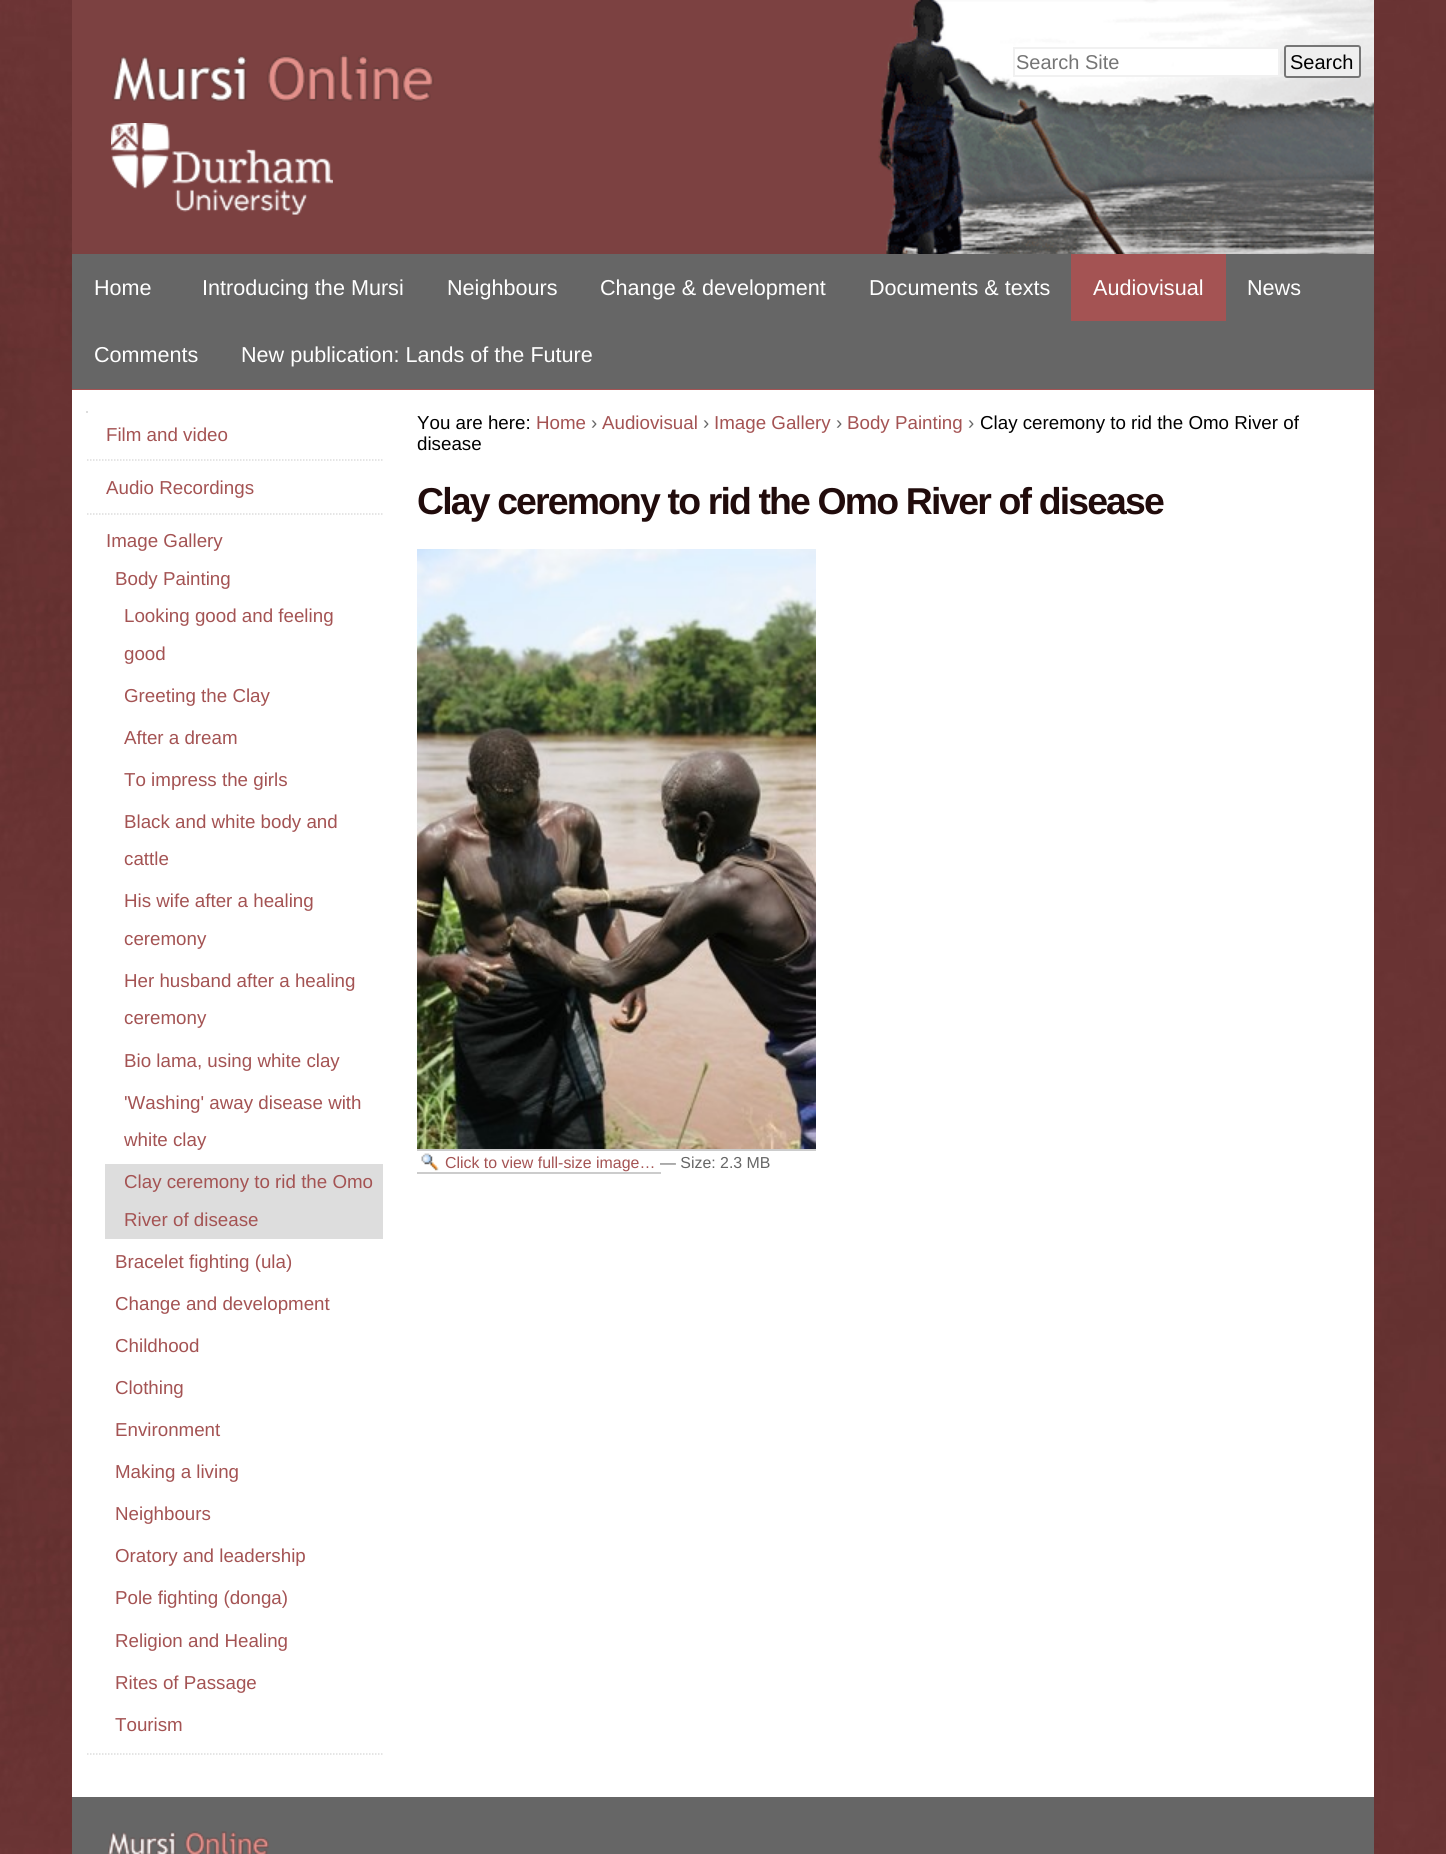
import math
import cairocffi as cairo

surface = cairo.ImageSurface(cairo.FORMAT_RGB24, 1446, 1854)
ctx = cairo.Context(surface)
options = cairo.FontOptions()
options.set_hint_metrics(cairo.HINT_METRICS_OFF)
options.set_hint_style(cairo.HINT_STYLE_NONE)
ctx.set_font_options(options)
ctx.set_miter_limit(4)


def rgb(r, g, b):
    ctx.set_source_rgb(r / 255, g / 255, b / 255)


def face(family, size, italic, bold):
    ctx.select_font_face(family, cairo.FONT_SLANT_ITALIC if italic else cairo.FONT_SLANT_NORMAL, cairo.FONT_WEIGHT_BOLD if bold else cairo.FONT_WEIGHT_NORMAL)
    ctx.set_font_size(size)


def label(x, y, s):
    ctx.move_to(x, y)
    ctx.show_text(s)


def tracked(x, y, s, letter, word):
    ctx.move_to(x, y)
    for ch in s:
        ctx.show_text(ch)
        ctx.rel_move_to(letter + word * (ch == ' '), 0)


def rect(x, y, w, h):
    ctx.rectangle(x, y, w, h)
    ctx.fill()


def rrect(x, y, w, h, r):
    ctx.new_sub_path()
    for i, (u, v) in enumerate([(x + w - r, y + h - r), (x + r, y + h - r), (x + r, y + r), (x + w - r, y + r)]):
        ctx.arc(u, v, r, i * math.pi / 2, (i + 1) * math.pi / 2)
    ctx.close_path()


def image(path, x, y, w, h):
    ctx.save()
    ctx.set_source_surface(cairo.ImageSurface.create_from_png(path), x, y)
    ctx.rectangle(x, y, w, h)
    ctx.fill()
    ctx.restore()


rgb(255, 255, 255)
ctx.paint()
image('image0.png', 0, 0, 1446, 1854)
rgb(124, 65, 65)
rect(72, 0, 806, 254)
image('image1.png', 878, 0, 496, 254)
image('image2.png', 112, 54, 322, 48)
image('image3.png', 111, 123, 222, 92)
rgb(255, 255, 255)
rect(1174, 49, 104, 26)
ctx.rectangle(1014, 48, 265, 28)
rgb(241, 241, 241)
ctx.stroke()
face('Liberation Sans', 20, 0, 0)
rgb(117, 117, 117)
label(1016, 69, 'Search Site')
rgb(239, 239, 239)
rrect(1285, 46, 75, 31, 2)
ctx.fill_preserve()
rgb(118, 118, 118)
ctx.stroke()
rgb(0, 0, 0)
label(1290, 69, 'Search')
rgb(102, 102, 102)
rect(72, 254, 1302, 135)
rgb(164, 83, 83)
rect(72, 389, 1302, 1)
face('Liberation Sans', 21.6, 0, 0)
rgb(255, 255, 255)
label(94, 295, 'Home')
label(202, 295, 'Introducing the Mursi')
label(447, 295, 'Neighbours')
label(600, 295, 'Change & development')
label(869, 295, 'Documents & texts')
rgb(164, 83, 83)
rect(1071, 254, 155, 67)
rgb(255, 255, 255)
label(1093, 295, 'Audiovisual')
label(1247, 295, 'News')
label(94, 362, 'Comments')
label(241, 362, 'New publication: Lands of the Future')
rect(72, 390, 1302, 1407)
rgb(221, 221, 221)
rect(86, 411, 2, 2)
ctx.new_path()
ctx.move_to(87, 460)
ctx.line_to(382.5, 460)
ctx.set_line_width(1.5)
ctx.set_dash([1.5, 1.5])
ctx.stroke()
face('Liberation Sans', 18.75, 0, 0)
rgb(164, 83, 83)
label(106, 441, 'Film and video')
ctx.new_path()
ctx.move_to(87, 514)
ctx.line_to(382.5, 514)
rgb(221, 221, 221)
ctx.stroke()
rgb(164, 83, 83)
label(106, 494, 'Audio Recordings')
ctx.new_path()
ctx.move_to(87, 1754)
ctx.line_to(382.5, 1754)
rgb(221, 221, 221)
ctx.stroke()
rgb(164, 83, 83)
label(106, 547, 'Image Gallery')
label(115, 585, 'Body Painting')
label(124, 622, 'Looking good and feeling')
label(124, 660, 'good')
label(124, 702, 'Greeting the Clay')
label(124, 744, 'After a dream')
label(124, 786, 'To impress the girls')
label(124, 828, 'Black and white body and')
label(124, 865, 'cattle')
label(124, 907, 'His wife after a healing')
label(124, 945, 'ceremony')
label(124, 987, 'Her husband after a healing')
label(124, 1024, 'ceremony')
label(124, 1067, 'Bio lama, using white clay')
label(124, 1109, '\'Washing\' away disease with')
label(124, 1146, 'white clay')
rgb(221, 221, 221)
rect(105, 1164, 278, 75)
rgb(164, 83, 83)
label(124, 1188, 'Clay ceremony to rid the Omo')
label(124, 1226, 'River of disease')
label(115, 1268, 'Bracelet fighting (ula)')
label(115, 1310, 'Change and development')
label(115, 1352, 'Childhood')
label(115, 1394, 'Clothing')
label(115, 1436, 'Environment')
label(115, 1478, 'Making a living')
label(115, 1520, 'Neighbours')
label(115, 1562, 'Oratory and leadership')
label(115, 1604, 'Pole fighting (donga)')
label(115, 1647, 'Religion and Healing')
label(115, 1689, 'Rites of Passage')
label(115, 1731, 'Tourism')
rgb(0, 0, 0)
label(417, 429, 'You are here:')
rgb(164, 83, 83)
label(536, 429, 'Home')
rgb(102, 102, 102)
label(591, 429, '›')
rgb(164, 83, 83)
label(602, 429, 'Audiovisual')
rgb(102, 102, 102)
label(703, 429, '›')
rgb(164, 83, 83)
label(714, 429, 'Image Gallery')
rgb(102, 102, 102)
label(836, 429, '›')
rgb(164, 83, 83)
label(847, 429, 'Body Painting')
rgb(102, 102, 102)
label(968, 429, '›')
rgb(0, 0, 0)
label(980, 429, 'Clay ceremony to rid the Omo River of')
label(417, 450, 'disease')
face('Liberation Sans', 37.4, 0, 1)
rgb(33, 12, 12)
tracked(417, 514, 'Clay ceremony to rid the Omo River of disease', -1.85, 0)
image('image4.png', 417, 549, 399, 600)
image('image5.png', 421, 1153, 18, 18)
face('Liberation Sans', 15.9, 0, 0)
rgb(164, 83, 83)
label(445, 1168, 'Click to view full-size image…')
rgb(204, 204, 204)
rect(417, 1149, 399, 2)
rect(417, 1172, 244, 2)
rgb(102, 102, 102)
label(660, 1168, '— Size: 2.3 MB')
rect(72, 1797, 1302, 57)
image('image6.png', 108, 1831, 161, 23)
surface.write_to_png('render.png')
